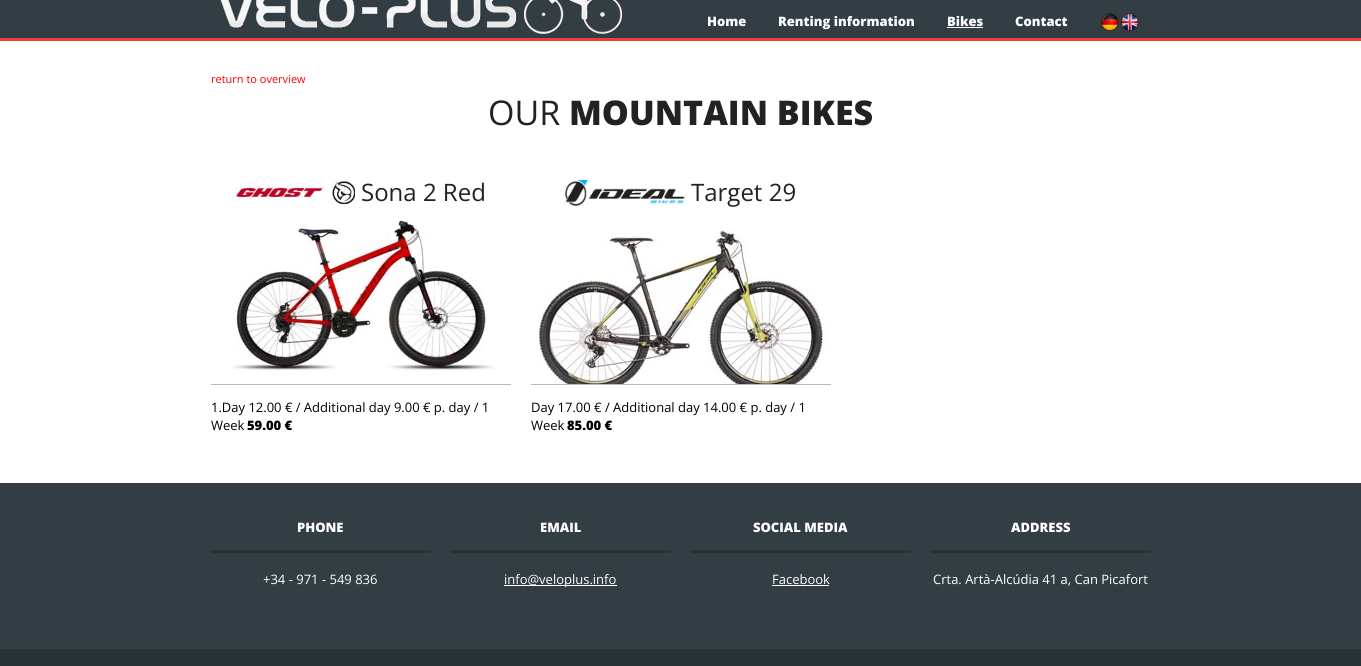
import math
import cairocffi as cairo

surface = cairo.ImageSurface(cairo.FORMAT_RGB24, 1361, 666)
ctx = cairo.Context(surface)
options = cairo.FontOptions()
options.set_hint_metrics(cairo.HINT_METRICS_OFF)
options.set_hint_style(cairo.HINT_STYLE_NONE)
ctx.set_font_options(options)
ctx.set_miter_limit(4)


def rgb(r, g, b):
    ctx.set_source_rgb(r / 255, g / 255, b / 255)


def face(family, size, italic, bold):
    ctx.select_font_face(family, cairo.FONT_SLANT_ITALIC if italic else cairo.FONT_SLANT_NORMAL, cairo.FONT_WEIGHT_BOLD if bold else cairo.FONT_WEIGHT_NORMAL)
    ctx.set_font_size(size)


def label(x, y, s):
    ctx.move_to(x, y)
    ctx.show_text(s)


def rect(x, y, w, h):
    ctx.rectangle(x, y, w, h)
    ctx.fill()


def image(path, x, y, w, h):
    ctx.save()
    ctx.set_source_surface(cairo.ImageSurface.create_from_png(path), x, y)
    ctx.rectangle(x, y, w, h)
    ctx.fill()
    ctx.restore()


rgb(40, 49, 54)
ctx.paint()
rgb(50, 61, 68)
rect(0, 0, 1361, 38)
rgb(235, 62, 53)
rect(0, 38, 1361, 3)
image('image0.png', 220, 0, 402, 34)
face('Open Sans ExtraBold', 13, 0, 0)
rgb(255, 255, 255)
label(707, 26, 'Home')
label(778, 26, 'Renting information')
label(947, 26, 'Bikes')
rect(947, 27, 36, 1)
label(1015, 26, 'Contact')
image('image1.png', 1101, 13, 18, 18)
image('image2.png', 1121, 13, 18, 18)
rect(0, 41, 1361, 442)
face('Open Sans', 11, 0, 0)
rgb(255, 0, 0)
label(211, 83, 'return to overview')
face('Open Sans', 34, 0, 0)
rgb(34, 34, 34)
label(488, 125, 'OUR')
face('Open Sans ExtraBold', 34, 0, 0)
label(569, 125, 'MOUNTAIN BIKES')
image('image3.png', 235, 180, 120, 24)
face('Open Sans', 24, 0, 0)
label(361, 201, 'Sona 2 Red')
rgb(191, 181, 181)
rect(211, 384, 300, 1)
image('image4.png', 231, 216, 264, 157)
face('Open Sans', 13, 0, 0)
rgb(0, 0, 0)
label(211, 412, '1.Day 12.00 € / Additional day 9.00 € p. day / 1')
label(211, 430, 'Week')
face('Open Sans ExtraBold', 13, 0, 0)
label(247, 430, '59.00 €')
image('image5.png', 565, 180, 120, 26)
face('Open Sans', 24, 0, 0)
rgb(34, 34, 34)
label(691, 201, 'Target 29')
rgb(191, 181, 181)
rect(531, 384, 300, 1)
image('image6.png', 539, 229, 288, 155)
face('Open Sans', 13, 0, 0)
rgb(0, 0, 0)
label(531, 412, 'Day 17.00 € / Additional day 14.00 € p. day / 1')
label(531, 430, 'Week')
face('Open Sans ExtraBold', 13, 0, 0)
label(567, 430, '85.00 €')
rgb(50, 61, 68)
rect(0, 483, 1361, 166)
rgb(40, 49, 54)
rect(211, 550, 220, 3)
rgb(255, 255, 255)
label(297, 532, 'PHONE')
face('Open Sans', 13, 0, 0)
label(263, 584, '+34 - 971 - 549 836')
rgb(40, 49, 54)
rect(451, 550, 220, 3)
face('Open Sans ExtraBold', 13, 0, 0)
rgb(255, 255, 255)
label(540, 532, 'EMAIL')
rect(504, 585, 113, 1)
face('Open Sans', 13, 0, 0)
label(504, 584, 'info@veloplus.info')
rgb(40, 49, 54)
rect(691, 550, 220, 3)
face('Open Sans ExtraBold', 13, 0, 0)
rgb(255, 255, 255)
label(753, 532, 'SOCIAL MEDIA')
face('Open Sans', 13, 0, 0)
label(772, 584, 'Facebook')
rect(772, 585, 57, 1)
rgb(40, 49, 54)
rect(931, 550, 220, 3)
face('Open Sans ExtraBold', 13, 0, 0)
rgb(255, 255, 255)
label(1011, 532, 'ADDRESS')
face('Open Sans', 13, 0, 0)
label(933, 584, 'Crta. Artà-Alcúdia 41 a, Can Picafort')
surface.write_to_png('render.png')
